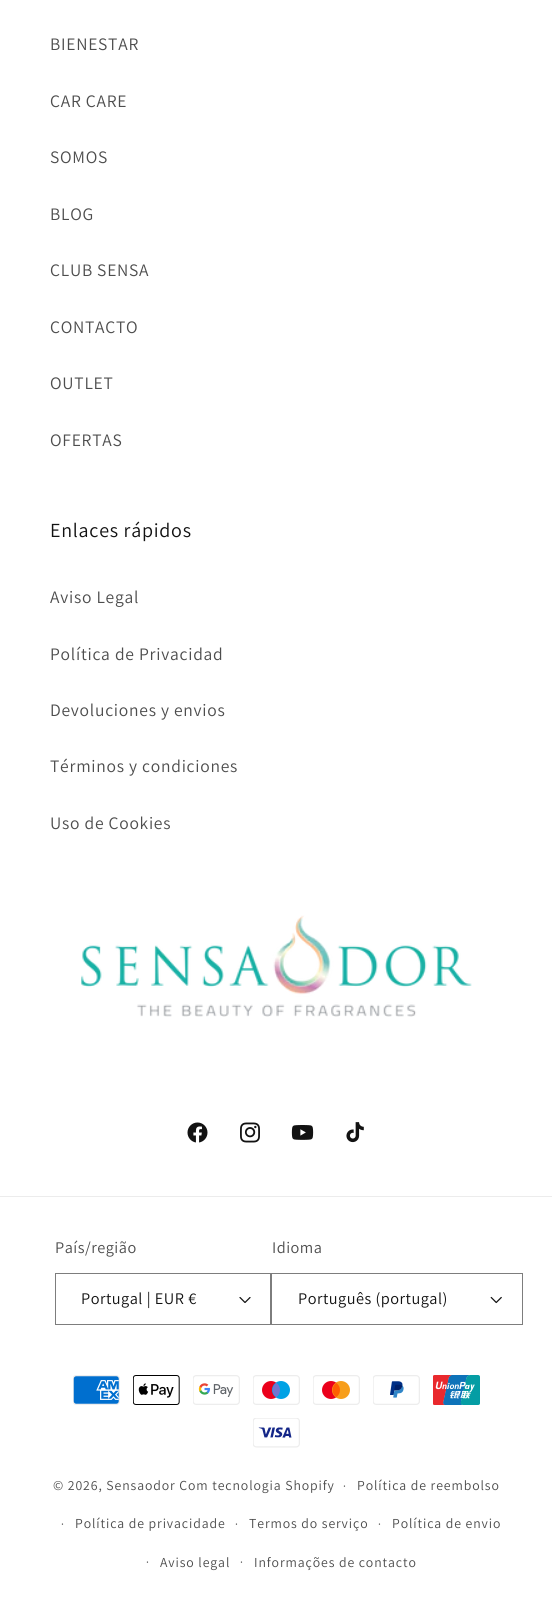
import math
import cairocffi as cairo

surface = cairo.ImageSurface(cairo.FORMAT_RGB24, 552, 1615)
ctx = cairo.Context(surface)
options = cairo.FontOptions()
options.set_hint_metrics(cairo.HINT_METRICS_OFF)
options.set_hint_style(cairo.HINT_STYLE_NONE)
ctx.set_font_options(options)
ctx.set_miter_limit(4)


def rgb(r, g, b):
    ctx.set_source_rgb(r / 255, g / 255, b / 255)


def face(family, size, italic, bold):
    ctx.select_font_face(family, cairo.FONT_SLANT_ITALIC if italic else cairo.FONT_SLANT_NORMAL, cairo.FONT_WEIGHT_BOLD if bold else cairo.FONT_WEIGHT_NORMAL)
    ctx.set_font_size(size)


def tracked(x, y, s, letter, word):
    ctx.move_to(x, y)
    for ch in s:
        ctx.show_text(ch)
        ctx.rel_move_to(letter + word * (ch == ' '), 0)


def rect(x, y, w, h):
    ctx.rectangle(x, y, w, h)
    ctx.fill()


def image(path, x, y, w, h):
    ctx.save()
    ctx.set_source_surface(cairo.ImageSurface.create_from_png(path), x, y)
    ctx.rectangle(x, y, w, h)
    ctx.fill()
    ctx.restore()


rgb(255, 255, 255)
ctx.paint()
face('Assistant', 17.5, 0, 0)
rgb(77, 77, 77)
tracked(50, 50, 'BIENESTAR', 0.75, 0)
tracked(50, 107, 'CAR CARE', 0.75, 0)
tracked(50, 163, 'SOMOS', 0.75, 0)
tracked(50, 220, 'BLOG', 0.75, 0)
tracked(50, 276, 'CLUB SENSA', 0.75, 0)
tracked(50, 333, 'CONTACTO', 0.75, 0)
tracked(50, 389, 'OUTLET', 0.75, 0)
tracked(50, 446, 'OFERTAS', 0.75, 0)
face('Assistant', 20, 0, 0)
rgb(18, 18, 18)
tracked(50, 537, 'Enlaces rápidos', 0.75, 0)
face('Assistant', 17.5, 0, 0)
rgb(77, 77, 77)
tracked(50, 603, 'Aviso Legal', 0.75, 0)
tracked(50, 660, 'Política de Privacidad', 0.75, 0)
tracked(50, 716, 'Devoluciones y envios', 0.75, 0)
tracked(50, 772, 'Términos y condiciones', 0.75, 0)
tracked(50, 829, 'Uso de Cookies', 0.75, 0)
image('image0.png', 81, 915, 391, 102)
image('image1.png', 187, 1122, 21, 21)
image('image2.png', 240, 1122, 20, 21)
image('image3.png', 291, 1125, 23, 15)
image('image4.png', 346, 1122, 18, 21)
rgb(236, 236, 236)
rect(0, 1196, 552, 1)
face('Assistant', 16.25, 0, 0)
rgb(77, 77, 77)
tracked(55, 1253, 'País/região', 0.5, 0)
image('image5.png', 239, 1297, 12, 6)
ctx.rectangle(55.5, 1273.5, 215, 51)
rgb(125, 125, 125)
ctx.set_line_width(1)
ctx.stroke()
rgb(18, 18, 18)
tracked(81, 1304, 'Portugal | EUR €', 0.5, 0)
rgb(77, 77, 77)
tracked(272, 1253, 'Idioma', 0.5, 0)
image('image6.png', 490, 1296, 12, 8)
ctx.rectangle(271.5, 1273.5, 251, 51)
rgb(125, 125, 125)
ctx.stroke()
rgb(18, 18, 18)
tracked(298, 1304, 'Português (portugal)', 0.5, 0)
image('image7.png', 73, 1375, 47, 30)
image('image8.png', 133, 1375, 47, 30)
image('image9.png', 193, 1375, 47, 30)
image('image10.png', 253, 1375, 47, 30)
image('image11.png', 313, 1375, 47, 30)
image('image12.png', 373, 1375, 47, 30)
image('image13.png', 433, 1375, 47, 30)
image('image14.png', 253, 1418, 47, 30)
face('Assistant', 12, 0, 0)
rgb(77, 77, 77)
tracked(343, 1490, '·', 0.9, 0)
face('Assistant', 13.75, 0, 0)
tracked(357, 1490, 'Política de reembolso', 0.9, 0)
face('Assistant', 12, 0, 0)
tracked(61, 1528, '·', 0.9, 0)
face('Assistant', 13.75, 0, 0)
tracked(75, 1528, 'Política de privacidade', 0.9, 0)
face('Assistant', 12, 0, 0)
tracked(235, 1528, '·', 0.9, 0)
face('Assistant', 13.75, 0, 0)
tracked(249, 1528, 'Termos do serviço', 0.9, 0)
face('Assistant', 12, 0, 0)
tracked(378, 1528, '·', 0.9, 0)
face('Assistant', 13.75, 0, 0)
tracked(392, 1528, 'Política de envio', 0.9, 0)
face('Assistant', 12, 0, 0)
tracked(146, 1566, '·', 0.9, 0)
face('Assistant', 13.75, 0, 0)
tracked(160, 1567, 'Aviso legal', 0.9, 0)
face('Assistant', 12, 0, 0)
tracked(240, 1566, '·', 0.9, 0)
face('Assistant', 13.75, 0, 0)
tracked(254, 1567, 'Informações de contacto', 0.9, 0)
tracked(53, 1490, '© 2026, Sensaodor Com tecnologia Shopify', 0.9, 0)
surface.write_to_png('render.png')
